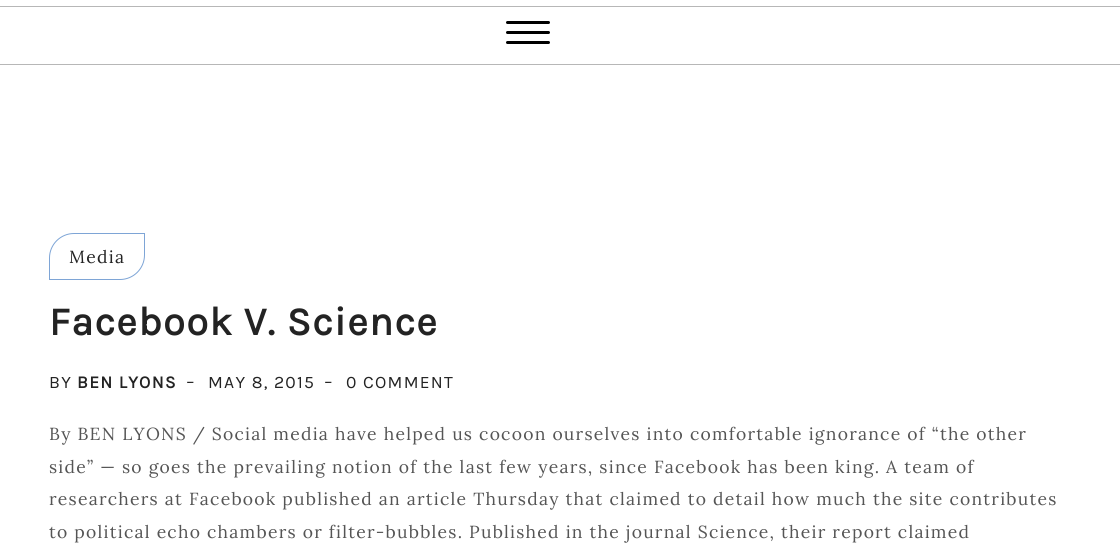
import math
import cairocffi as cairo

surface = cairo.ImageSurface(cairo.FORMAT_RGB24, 1120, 554)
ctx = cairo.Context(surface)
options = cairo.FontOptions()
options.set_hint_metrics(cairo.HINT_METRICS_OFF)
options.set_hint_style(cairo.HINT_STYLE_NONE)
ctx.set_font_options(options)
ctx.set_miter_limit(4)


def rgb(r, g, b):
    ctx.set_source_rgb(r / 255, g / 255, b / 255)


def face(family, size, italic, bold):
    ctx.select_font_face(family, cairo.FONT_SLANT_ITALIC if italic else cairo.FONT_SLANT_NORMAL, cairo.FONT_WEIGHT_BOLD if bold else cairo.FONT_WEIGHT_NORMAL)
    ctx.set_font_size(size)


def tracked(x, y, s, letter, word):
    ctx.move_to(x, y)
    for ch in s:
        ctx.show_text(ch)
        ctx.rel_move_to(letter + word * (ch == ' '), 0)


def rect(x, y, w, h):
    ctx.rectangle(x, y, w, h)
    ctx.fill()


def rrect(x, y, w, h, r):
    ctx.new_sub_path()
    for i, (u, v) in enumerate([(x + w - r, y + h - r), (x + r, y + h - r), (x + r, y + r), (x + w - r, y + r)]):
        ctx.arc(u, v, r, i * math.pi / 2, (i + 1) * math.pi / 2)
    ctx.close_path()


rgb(255, 255, 255)
ctx.paint()
rgb(183, 183, 183)
rect(0, 6, 1120, 1)
rect(0, 64, 1120, 1)
rgb(0, 0, 0)
rrect(506, 21, 44, 3, 1.5)
ctx.fill()
rrect(506, 31, 44, 3, 1.5)
ctx.fill()
rrect(506, 41, 44, 3, 1.5)
ctx.fill()
ctx.new_path()
ctx.move_to(74, 233.5)
ctx.line_to(144.5, 233.5)
ctx.line_to(144.5, 255)
ctx.curve_to(144.5, 268.5, 133.5, 279.5, 120, 279.5)
ctx.line_to(49.5, 279.5)
ctx.line_to(49.5, 258)
ctx.curve_to(49.5, 244.5, 60.5, 233.5, 74, 233.5)
ctx.close_path()
rgb(126, 165, 214)
ctx.set_line_width(1)
ctx.stroke()
face('Lora', 17.5, 0, 0)
rgb(35, 35, 35)
tracked(69, 263, 'Media', 1.25, 0)
face('Karla', 40, 0, 1)
tracked(49, 335, 'Facebook V. Science', 1.25, 0)
face('Karla', 17.5, 0, 0)
tracked(49, 388, 'BY', 1.25, 0)
face('Karla', 17.5, 0, 1)
tracked(77, 388, 'BEN LYONS', 1.25, 0)
face('Lora', 17.5, 0, 0)
tracked(186, 388, '-', 1.25, 0)
face('Karla', 17.5, 0, 0)
tracked(208, 388, 'MAY 8, 2015', 1.25, 0)
face('Lora', 17.5, 0, 0)
tracked(324, 388, '-', 1.25, 0)
face('Karla', 17.5, 0, 0)
tracked(346, 388, '0 COMMENT', 1.25, 0)
face('Lora', 17.5, 0, 0)
rgb(85, 85, 85)
tracked(49, 440, 'By BEN LYONS / Social media have helped us cocoon ourselves into comfortable ignorance of “the other', 1.25, 0)
tracked(49, 473, 'side” — so goes the prevailing notion of the last few years, since Facebook has been king. A team of', 1.25, 0)
tracked(49, 505, 'researchers at Facebook published an article Thursday that claimed to detail how much the site contributes', 1.25, 0)
tracked(49, 538, 'to political echo chambers or filter-bubbles. Published in the journal Science, their report claimed', 1.25, 0)
surface.write_to_png('render.png')
